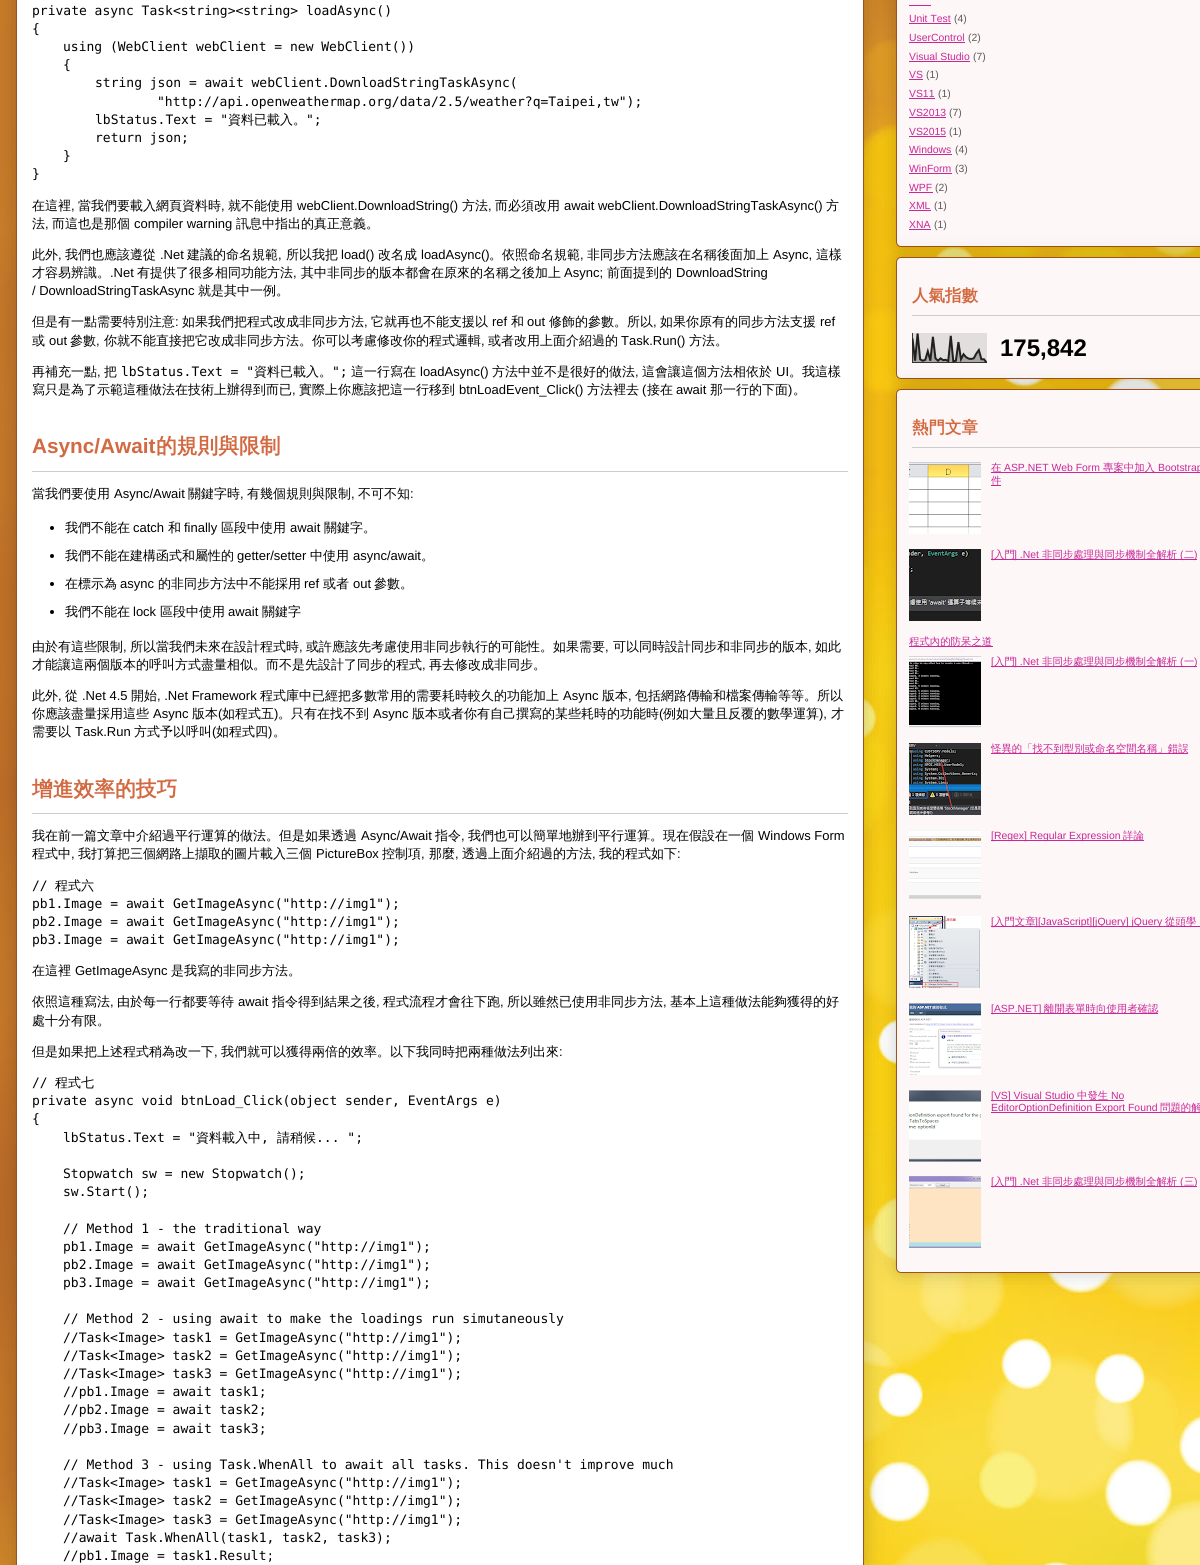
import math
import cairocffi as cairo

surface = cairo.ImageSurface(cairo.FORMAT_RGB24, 1200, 1565)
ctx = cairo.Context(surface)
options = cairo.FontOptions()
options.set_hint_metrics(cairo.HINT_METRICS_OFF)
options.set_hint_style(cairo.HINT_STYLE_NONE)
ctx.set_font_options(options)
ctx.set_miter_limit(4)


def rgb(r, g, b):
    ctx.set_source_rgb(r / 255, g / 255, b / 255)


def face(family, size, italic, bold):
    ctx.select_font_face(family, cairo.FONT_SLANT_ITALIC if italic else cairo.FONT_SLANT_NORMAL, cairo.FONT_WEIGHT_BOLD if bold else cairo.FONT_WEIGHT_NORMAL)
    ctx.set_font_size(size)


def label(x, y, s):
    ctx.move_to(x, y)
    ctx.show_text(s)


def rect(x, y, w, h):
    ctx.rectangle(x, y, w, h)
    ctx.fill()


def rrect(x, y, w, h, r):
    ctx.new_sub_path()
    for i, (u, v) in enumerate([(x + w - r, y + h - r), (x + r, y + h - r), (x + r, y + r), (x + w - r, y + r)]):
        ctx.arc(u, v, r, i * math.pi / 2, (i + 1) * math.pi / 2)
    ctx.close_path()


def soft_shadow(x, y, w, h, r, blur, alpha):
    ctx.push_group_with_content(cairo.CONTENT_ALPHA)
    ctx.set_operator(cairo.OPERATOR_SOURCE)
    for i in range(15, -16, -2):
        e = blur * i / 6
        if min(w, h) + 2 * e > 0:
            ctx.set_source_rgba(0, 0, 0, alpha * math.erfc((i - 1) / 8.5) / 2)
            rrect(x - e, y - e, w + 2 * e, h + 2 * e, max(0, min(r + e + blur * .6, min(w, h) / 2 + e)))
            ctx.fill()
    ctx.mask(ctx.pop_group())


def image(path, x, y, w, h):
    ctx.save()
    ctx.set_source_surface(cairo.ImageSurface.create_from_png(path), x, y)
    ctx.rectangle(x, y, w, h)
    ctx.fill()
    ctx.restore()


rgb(255, 255, 255)
ctx.paint()
image('image0.png', 0, 0, 1200, 1565)
rgb(0, 0, 0)
soft_shadow(16, -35, 848, 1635, 5, 10, 0.2)
rgb(255, 255, 255)
ctx.rectangle(16.5, -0.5, 847, 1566)
ctx.fill_preserve()
rgb(159, 82, 31)
ctx.set_line_width(1)
ctx.stroke()
face('DejaVu Sans Mono', 13, 0, 0)
rgb(0, 0, 0)
label(32, 15, 'private async Task<string><string> loadAsync()')
label(32, 33, '{')
label(63, 51, 'using (WebClient webClient = new WebClient())')
label(63, 69, '{')
label(95, 87, 'string json = await webClient.DownloadStringTaskAsync(')
label(157, 106, '"http://api.openweathermap.org/data/2.5/weather?q=Taipei,tw");')
label(95, 124, 'lbStatus.Text = "')
face('WenQuanYi Zen Hei Medium', 13, 0, 0)
label(228, 124, '資料已載入。')
face('DejaVu Sans Mono', 13, 0, 0)
label(306, 124, '";')
label(95, 142, 'return json;')
label(63, 160, '}')
label(32, 178, '}')
face('WenQuanYi Zen Hei Medium', 13, 0, 0)
label(32, 210, '在這裡')
face('Liberation Sans', 13, 0, 0)
label(71, 210, ',')
face('WenQuanYi Zen Hei Medium', 13, 0, 0)
label(78, 210, '當我們要載入網頁資料時')
face('Liberation Sans', 13, 0, 0)
label(221, 210, ',')
face('WenQuanYi Zen Hei Medium', 13, 0, 0)
label(228, 210, '就不能使用')
face('Liberation Sans', 13, 0, 0)
label(297, 210, 'webClient.DownloadString()')
face('WenQuanYi Zen Hei Medium', 13, 0, 0)
label(462, 210, '方法')
face('Liberation Sans', 13, 0, 0)
label(488, 210, ',')
face('WenQuanYi Zen Hei Medium', 13, 0, 0)
label(495, 210, '而必須改用')
face('Liberation Sans', 13, 0, 0)
label(564, 210, 'await webClient.DownloadStringTaskAsync()')
face('WenQuanYi Zen Hei Medium', 13, 0, 0)
label(826, 210, '方')
label(32, 228, '法')
face('Liberation Sans', 13, 0, 0)
label(45, 228, ',')
face('WenQuanYi Zen Hei Medium', 13, 0, 0)
label(52, 228, '而這也是那個')
face('Liberation Sans', 13, 0, 0)
label(134, 228, 'compiler warning')
face('WenQuanYi Zen Hei Medium', 13, 0, 0)
label(236, 228, '訊息中指出的真正意義。')
label(32, 259, '此外')
face('Liberation Sans', 13, 0, 0)
label(58, 259, ',')
face('WenQuanYi Zen Hei Medium', 13, 0, 0)
label(65, 259, '我們也應該遵從')
face('Liberation Sans', 13, 0, 0)
label(160, 259, '.Net')
face('WenQuanYi Zen Hei Medium', 13, 0, 0)
label(187, 259, '建議的命名規範')
face('Liberation Sans', 13, 0, 0)
label(278, 259, ',')
face('WenQuanYi Zen Hei Medium', 13, 0, 0)
label(286, 259, '所以我把')
face('Liberation Sans', 13, 0, 0)
label(341, 259, 'load()')
face('WenQuanYi Zen Hei Medium', 13, 0, 0)
label(378, 259, '改名成')
face('Liberation Sans', 13, 0, 0)
label(421, 259, 'loadAsync()')
face('WenQuanYi Zen Hei Medium', 13, 0, 0)
label(489, 259, '。依照命名規範')
face('Liberation Sans', 13, 0, 0)
label(580, 259, ',')
face('WenQuanYi Zen Hei Medium', 13, 0, 0)
label(587, 259, '非同步方法應該在名稱後面加上')
face('Liberation Sans', 13, 0, 0)
label(773, 259, 'Async,')
face('WenQuanYi Zen Hei Medium', 13, 0, 0)
label(816, 259, '這樣')
label(32, 277, '才容易辨識。')
face('Liberation Sans', 13, 0, 0)
label(110, 277, '.Net')
face('WenQuanYi Zen Hei Medium', 13, 0, 0)
label(137, 277, '有提供了很多相同功能方法')
face('Liberation Sans', 13, 0, 0)
label(293, 277, ',')
face('WenQuanYi Zen Hei Medium', 13, 0, 0)
label(301, 277, '其中非同步的版本都會在原來的名稱之後加上')
face('Liberation Sans', 13, 0, 0)
label(564, 277, 'Async;')
face('WenQuanYi Zen Hei Medium', 13, 0, 0)
label(607, 277, '前面提到的')
face('Liberation Sans', 13, 0, 0)
label(676, 277, 'DownloadString')
label(32, 295, '/ DownloadStringTaskAsync')
face('WenQuanYi Zen Hei Medium', 13, 0, 0)
label(198, 295, '就是其中一例。')
label(32, 326, '但是有一點需要特別注意')
face('Liberation Sans', 13, 0, 0)
label(175, 326, ':')
face('WenQuanYi Zen Hei Medium', 13, 0, 0)
label(182, 326, '如果我們把程式改成非同步方法')
face('Liberation Sans', 13, 0, 0)
label(364, 326, ',')
face('WenQuanYi Zen Hei Medium', 13, 0, 0)
label(371, 326, '它就再也不能支援以')
face('Liberation Sans', 13, 0, 0)
label(492, 326, 'ref')
face('WenQuanYi Zen Hei Medium', 13, 0, 0)
label(511, 326, '和')
face('Liberation Sans', 13, 0, 0)
label(527, 326, 'out')
face('WenQuanYi Zen Hei Medium', 13, 0, 0)
label(549, 326, '修飾的參數。所以')
face('Liberation Sans', 13, 0, 0)
label(653, 326, ',')
face('WenQuanYi Zen Hei Medium', 13, 0, 0)
label(660, 326, '如果你原有的同步方法支援')
face('Liberation Sans', 13, 0, 0)
label(820, 326, 'ref')
face('WenQuanYi Zen Hei Medium', 13, 0, 0)
label(32, 345, '或')
face('Liberation Sans', 13, 0, 0)
label(49, 345, 'out')
face('WenQuanYi Zen Hei Medium', 13, 0, 0)
label(70, 345, '參數')
face('Liberation Sans', 13, 0, 0)
label(96, 345, ',')
face('WenQuanYi Zen Hei Medium', 13, 0, 0)
label(104, 345, '你就不能直接把它改成非同步方法。你可以考慮修改你的程式邏輯')
face('Liberation Sans', 13, 0, 0)
label(481, 345, ',')
face('WenQuanYi Zen Hei Medium', 13, 0, 0)
label(488, 345, '或者改用上面介紹過的')
face('Liberation Sans', 13, 0, 0)
label(621, 345, 'Task.Run()')
face('WenQuanYi Zen Hei Medium', 13, 0, 0)
label(689, 345, '方法。')
label(32, 376, '再補充一點')
face('Liberation Sans', 13, 0, 0)
label(97, 376, ',')
face('WenQuanYi Zen Hei Medium', 13, 0, 0)
label(104, 376, '把')
face('DejaVu Sans Mono', 13, 0, 0)
label(121, 376, 'lbStatus.Text = "')
face('WenQuanYi Zen Hei Medium', 13, 0, 0)
label(254, 376, '資料已載入。')
face('DejaVu Sans Mono', 13, 0, 0)
label(332, 376, '";')
face('WenQuanYi Zen Hei Medium', 13, 0, 0)
label(351, 376, '這一行寫在')
face('Liberation Sans', 13, 0, 0)
label(420, 376, 'loadAsync()')
face('WenQuanYi Zen Hei Medium', 13, 0, 0)
label(492, 376, '方法中並不是很好的做法')
face('Liberation Sans', 13, 0, 0)
label(635, 376, ',')
face('WenQuanYi Zen Hei Medium', 13, 0, 0)
label(642, 376, '這會讓這個方法相依於')
face('Liberation Sans', 13, 0, 0)
label(776, 376, 'UI')
face('WenQuanYi Zen Hei Medium', 13, 0, 0)
label(789, 376, '。我這樣')
label(32, 394, '寫只是為了示範這種做法在技術上辦得到而已')
face('Liberation Sans', 13, 0, 0)
label(292, 394, ',')
face('WenQuanYi Zen Hei Medium', 13, 0, 0)
label(299, 394, '實際上你應該把這一行移到')
face('Liberation Sans', 13, 0, 0)
label(459, 394, 'btnLoadEvent_Click()')
face('WenQuanYi Zen Hei Medium', 13, 0, 0)
label(587, 394, '方法裡去')
face('Liberation Sans', 13, 0, 0)
label(642, 394, '(')
face('WenQuanYi Zen Hei Medium', 13, 0, 0)
label(647, 394, '接在')
face('Liberation Sans', 13, 0, 0)
label(676, 394, 'await')
face('WenQuanYi Zen Hei Medium', 13, 0, 0)
label(710, 394, '那一行的下面')
face('Liberation Sans', 13, 0, 0)
label(788, 394, ')')
face('WenQuanYi Zen Hei Medium', 13, 0, 0)
label(793, 394, '。')
rgb(204, 204, 204)
rect(32, 471, 816, 1)
face('Liberation Sans', 20.75, 0, 1)
rgb(210, 105, 65)
label(32, 453, 'Async/Await')
face('WenQuanYi Zen Hei', 20.75, 0, 1)
label(156, 453, '的規則與限制')
face('WenQuanYi Zen Hei Medium', 13, 0, 0)
rgb(0, 0, 0)
label(32, 498, '當我們要使用')
face('Liberation Sans', 13, 0, 0)
label(114, 498, 'Async/Await')
face('WenQuanYi Zen Hei Medium', 13, 0, 0)
label(188, 498, '關鍵字時')
face('Liberation Sans', 13, 0, 0)
label(240, 498, ',')
face('WenQuanYi Zen Hei Medium', 13, 0, 0)
label(247, 498, '有幾個規則與限制')
face('Liberation Sans', 13, 0, 0)
label(351, 498, ',')
face('WenQuanYi Zen Hei Medium', 13, 0, 0)
label(358, 498, '不可不知')
face('Liberation Sans', 13, 0, 0)
label(410, 498, ':')
ctx.new_path()
ctx.arc(52, 528, 2, 0, 2 * math.pi)
ctx.fill()
face('WenQuanYi Zen Hei Medium', 13, 0, 0)
label(65, 532, '我們不能在')
face('Liberation Sans', 13, 0, 0)
label(133, 532, 'catch')
face('WenQuanYi Zen Hei Medium', 13, 0, 0)
label(168, 532, '和')
face('Liberation Sans', 13, 0, 0)
label(184, 532, 'finally')
face('WenQuanYi Zen Hei Medium', 13, 0, 0)
label(221, 532, '區段中使用')
face('Liberation Sans', 13, 0, 0)
label(290, 532, 'await')
face('WenQuanYi Zen Hei Medium', 13, 0, 0)
label(324, 532, '關鍵字。')
ctx.new_path()
ctx.arc(52, 556, 2, 0, 2 * math.pi)
ctx.fill()
label(65, 560, '我們不能在建構函式和屬性的')
face('Liberation Sans', 13, 0, 0)
label(237, 560, 'getter/setter')
face('WenQuanYi Zen Hei Medium', 13, 0, 0)
label(310, 560, '中使用')
face('Liberation Sans', 13, 0, 0)
label(353, 560, 'async/await')
face('WenQuanYi Zen Hei Medium', 13, 0, 0)
label(421, 560, '。')
ctx.new_path()
ctx.arc(52, 584, 2, 0, 2 * math.pi)
ctx.fill()
label(65, 588, '在標示為')
face('Liberation Sans', 13, 0, 0)
label(120, 588, 'async')
face('WenQuanYi Zen Hei Medium', 13, 0, 0)
label(158, 588, '的非同步方法中不能採用')
face('Liberation Sans', 13, 0, 0)
label(304, 588, 'ref')
face('WenQuanYi Zen Hei Medium', 13, 0, 0)
label(323, 588, '或者')
face('Liberation Sans', 13, 0, 0)
label(353, 588, 'out')
face('WenQuanYi Zen Hei Medium', 13, 0, 0)
label(374, 588, '參數。')
ctx.new_path()
ctx.arc(52, 612, 2, 0, 2 * math.pi)
ctx.fill()
label(65, 616, '我們不能在')
face('Liberation Sans', 13, 0, 0)
label(133, 616, 'lock')
face('WenQuanYi Zen Hei Medium', 13, 0, 0)
label(160, 616, '區段中使用')
face('Liberation Sans', 13, 0, 0)
label(228, 616, 'await')
face('WenQuanYi Zen Hei Medium', 13, 0, 0)
label(262, 616, '關鍵字')
label(32, 651, '由於有這些限制')
face('Liberation Sans', 13, 0, 0)
label(123, 651, ',')
face('WenQuanYi Zen Hei Medium', 13, 0, 0)
label(130, 651, '所以當我們未來在設計程式時')
face('Liberation Sans', 13, 0, 0)
label(299, 651, ',')
face('WenQuanYi Zen Hei Medium', 13, 0, 0)
label(306, 651, '或許應該先考慮使用非同步執行的可能性。如果需要')
face('Liberation Sans', 13, 0, 0)
label(605, 651, ',')
face('WenQuanYi Zen Hei Medium', 13, 0, 0)
label(613, 651, '可以同時設計同步和非同步的版本')
face('Liberation Sans', 13, 0, 0)
label(808, 651, ',')
face('WenQuanYi Zen Hei Medium', 13, 0, 0)
label(815, 651, '如此')
label(32, 669, '才能讓這兩個版本的呼叫方式盡量相似。而不是先設計了同步的程式')
face('Liberation Sans', 13, 0, 0)
label(422, 669, ',')
face('WenQuanYi Zen Hei Medium', 13, 0, 0)
label(429, 669, '再去修改成非同步。')
label(32, 700, '此外')
face('Liberation Sans', 13, 0, 0)
label(58, 700, ',')
face('WenQuanYi Zen Hei Medium', 13, 0, 0)
label(65, 700, '從')
face('Liberation Sans', 13, 0, 0)
label(82, 700, '.Net 4.5')
face('WenQuanYi Zen Hei Medium', 13, 0, 0)
label(131, 700, '開始')
face('Liberation Sans', 13, 0, 0)
label(157, 700, ', .Net Framework')
face('WenQuanYi Zen Hei Medium', 13, 0, 0)
label(260, 700, '程式庫中已經把多數常用的需要耗時較久的功能加上')
face('Liberation Sans', 13, 0, 0)
label(563, 700, 'Async')
face('WenQuanYi Zen Hei Medium', 13, 0, 0)
label(602, 700, '版本')
face('Liberation Sans', 13, 0, 0)
label(628, 700, ',')
face('WenQuanYi Zen Hei Medium', 13, 0, 0)
label(635, 700, '包括網路傳輸和檔案傳輸等等。所以')
label(32, 718, '你應該盡量採用這些')
face('Liberation Sans', 13, 0, 0)
label(153, 718, 'Async')
face('WenQuanYi Zen Hei Medium', 13, 0, 0)
label(192, 718, '版本')
face('Liberation Sans', 13, 0, 0)
label(218, 718, '(')
face('WenQuanYi Zen Hei Medium', 13, 0, 0)
label(222, 718, '如程式五')
face('Liberation Sans', 13, 0, 0)
label(274, 718, ')')
face('WenQuanYi Zen Hei Medium', 13, 0, 0)
label(278, 718, '。只有在找不到')
face('Liberation Sans', 13, 0, 0)
label(373, 718, 'Async')
face('WenQuanYi Zen Hei Medium', 13, 0, 0)
label(412, 718, '版本或者你有自己撰寫的某些耗時的功能時')
face('Liberation Sans', 13, 0, 0)
label(659, 718, '(')
face('WenQuanYi Zen Hei Medium', 13, 0, 0)
label(663, 718, '例如大量且反覆的數學運算')
face('Liberation Sans', 13, 0, 0)
label(819, 718, '),')
face('WenQuanYi Zen Hei Medium', 13, 0, 0)
label(831, 718, '才')
label(32, 736, '需要以')
face('Liberation Sans', 13, 0, 0)
label(75, 736, 'Task.Run')
face('WenQuanYi Zen Hei Medium', 13, 0, 0)
label(134, 736, '方式予以呼叫')
face('Liberation Sans', 13, 0, 0)
label(212, 736, '(')
face('WenQuanYi Zen Hei Medium', 13, 0, 0)
label(216, 736, '如程式四')
face('Liberation Sans', 13, 0, 0)
label(268, 736, ')')
face('WenQuanYi Zen Hei Medium', 13, 0, 0)
label(273, 736, '。')
rgb(204, 204, 204)
rect(32, 813, 816, 1)
face('WenQuanYi Zen Hei', 20.75, 0, 1)
rgb(210, 105, 65)
label(32, 796, '增進效率的技巧')
face('WenQuanYi Zen Hei Medium', 13, 0, 0)
rgb(0, 0, 0)
label(32, 840, '我在前一篇文章中介紹過平行運算的做法。但是如果透過')
face('Liberation Sans', 13, 0, 0)
label(361, 840, 'Async/Await')
face('WenQuanYi Zen Hei Medium', 13, 0, 0)
label(435, 840, '指令')
face('Liberation Sans', 13, 0, 0)
label(461, 840, ',')
face('WenQuanYi Zen Hei Medium', 13, 0, 0)
label(468, 840, '我們也可以簡單地辦到平行運算。現在假設在一個')
face('Liberation Sans', 13, 0, 0)
label(758, 840, 'Windows Form')
face('WenQuanYi Zen Hei Medium', 13, 0, 0)
label(32, 858, '程式中')
face('Liberation Sans', 13, 0, 0)
label(71, 858, ',')
face('WenQuanYi Zen Hei Medium', 13, 0, 0)
label(78, 858, '我打算把三個網路上擷取的圖片載入三個')
face('Liberation Sans', 13, 0, 0)
label(316, 858, 'PictureBox')
face('WenQuanYi Zen Hei Medium', 13, 0, 0)
label(382, 858, '控制項')
face('Liberation Sans', 13, 0, 0)
label(421, 858, ',')
face('WenQuanYi Zen Hei Medium', 13, 0, 0)
label(429, 858, '那麼')
face('Liberation Sans', 13, 0, 0)
label(455, 858, ',')
face('WenQuanYi Zen Hei Medium', 13, 0, 0)
label(462, 858, '透過上面介紹過的方法')
face('Liberation Sans', 13, 0, 0)
label(592, 858, ',')
face('WenQuanYi Zen Hei Medium', 13, 0, 0)
label(599, 858, '我的程式如下')
face('Liberation Sans', 13, 0, 0)
label(677, 858, ':')
face('DejaVu Sans Mono', 13, 0, 0)
label(32, 890, '//')
face('WenQuanYi Zen Hei Medium', 13, 0, 0)
label(55, 890, '程式六')
face('DejaVu Sans Mono', 13, 0, 0)
label(32, 908, 'pb1.Image = await GetImageAsync("http://img1");')
label(32, 926, 'pb2.Image = await GetImageAsync("http://img1");')
label(32, 944, 'pb3.Image = await GetImageAsync("http://img1");')
face('WenQuanYi Zen Hei Medium', 13, 0, 0)
label(32, 975, '在這裡')
face('Liberation Sans', 13, 0, 0)
label(75, 975, 'GetImageAsync')
face('WenQuanYi Zen Hei Medium', 13, 0, 0)
label(171, 975, '是我寫的非同步方法。')
label(32, 1006, '依照這種寫法')
face('Liberation Sans', 13, 0, 0)
label(110, 1006, ',')
face('WenQuanYi Zen Hei Medium', 13, 0, 0)
label(117, 1006, '由於每一行都要等待')
face('Liberation Sans', 13, 0, 0)
label(238, 1006, 'await')
face('WenQuanYi Zen Hei Medium', 13, 0, 0)
label(272, 1006, '指令得到結果之後')
face('Liberation Sans', 13, 0, 0)
label(376, 1006, ',')
face('WenQuanYi Zen Hei Medium', 13, 0, 0)
label(383, 1006, '程式流程才會往下跑')
face('Liberation Sans', 13, 0, 0)
label(500, 1006, ',')
face('WenQuanYi Zen Hei Medium', 13, 0, 0)
label(507, 1006, '所以雖然已使用非同步方法')
face('Liberation Sans', 13, 0, 0)
label(663, 1006, ',')
face('WenQuanYi Zen Hei Medium', 13, 0, 0)
label(670, 1006, '基本上這種做法能夠獲得的好')
label(32, 1025, '處十分有限。')
label(32, 1056, '但是如果把上述程式稍為改一下')
face('Liberation Sans', 13, 0, 0)
label(214, 1056, ',')
face('WenQuanYi Zen Hei Medium', 13, 0, 0)
label(221, 1056, '我們就可以獲得兩倍的效率。以下我同時把兩種做法列出來')
face('Liberation Sans', 13, 0, 0)
label(559, 1056, ':')
face('DejaVu Sans Mono', 13, 0, 0)
label(32, 1087, '//')
face('WenQuanYi Zen Hei Medium', 13, 0, 0)
label(55, 1087, '程式七')
face('DejaVu Sans Mono', 13, 0, 0)
label(32, 1105, 'private async void btnLoad_Click(object sender, EventArgs e)')
label(32, 1123, '{')
label(63, 1142, 'lbStatus.Text = "')
face('WenQuanYi Zen Hei Medium', 13, 0, 0)
label(196, 1142, '資料載入中')
face('DejaVu Sans Mono', 13, 0, 0)
label(261, 1142, ',')
face('WenQuanYi Zen Hei Medium', 13, 0, 0)
label(277, 1142, '請稍候')
face('DejaVu Sans Mono', 13, 0, 0)
label(316, 1142, '... ";')
label(63, 1178, 'Stopwatch sw = new Stopwatch();')
label(63, 1196, 'sw.Start();')
label(63, 1233, '// Method 1 - the traditional way')
label(63, 1251, 'pb1.Image = await GetImageAsync("http://img1");')
label(63, 1269, 'pb2.Image = await GetImageAsync("http://img1");')
label(63, 1287, 'pb3.Image = await GetImageAsync("http://img1");')
label(63, 1323, '// Method 2 - using await to make the loadings run simutaneously')
label(63, 1342, '//Task<Image> task1 = GetImageAsync("http://img1");')
label(63, 1360, '//Task<Image> task2 = GetImageAsync("http://img1");')
label(63, 1378, '//Task<Image> task3 = GetImageAsync("http://img1");')
label(63, 1396, '//pb1.Image = await task1;')
label(63, 1414, '//pb2.Image = await task2;')
label(63, 1433, '//pb3.Image = await task3;')
label(63, 1469, '// Method 3 - using Task.WhenAll to await all tasks. This doesn\'t improve much')
label(63, 1487, '//Task<Image> task1 = GetImageAsync("http://img1");')
label(63, 1505, '//Task<Image> task2 = GetImageAsync("http://img1");')
label(63, 1524, '//Task<Image> task3 = GetImageAsync("http://img1");')
label(63, 1542, '//await Task.WhenAll(task1, task2, task3);')
label(63, 1560, '//pb1.Image = task1.Result;')
rgb(0, 0, 0)
soft_shadow(896, -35, 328, 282, 5, 10, 0.2)
rgb(253, 247, 247)
rrect(896.5, -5.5, 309, 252, 4.5)
ctx.fill_preserve()
rgb(159, 82, 31)
ctx.stroke()
rgb(201, 39, 153)
rect(909, 5, 22, 1)
face('Liberation Sans', 10.4, 0, 0)
label(909, 22, 'Unit Test')
rect(909, 23, 42, 1)
rgb(90, 90, 90)
label(954, 22, '(4)')
rgb(201, 39, 153)
label(909, 41, 'UserControl')
rect(909, 42, 56, 1)
rgb(90, 90, 90)
label(968, 41, '(2)')
rgb(201, 39, 153)
label(909, 60, 'Visual Studio')
rect(909, 61, 61, 1)
rgb(90, 90, 90)
label(973, 60, '(7)')
rgb(201, 39, 153)
label(909, 78, 'VS')
rect(909, 79, 14, 1)
rgb(90, 90, 90)
label(926, 78, '(1)')
rgb(201, 39, 153)
label(909, 97, 'VS11')
rect(909, 98, 26, 1)
rgb(90, 90, 90)
label(938, 97, '(1)')
rgb(201, 39, 153)
label(909, 116, 'VS2013')
rect(909, 117, 37, 1)
rgb(90, 90, 90)
label(949, 116, '(7)')
rgb(201, 39, 153)
label(909, 135, 'VS2015')
rect(909, 136, 37, 1)
rgb(90, 90, 90)
label(949, 135, '(1)')
rgb(201, 39, 153)
label(909, 153, 'Windows')
rect(909, 154, 43, 1)
rgb(90, 90, 90)
label(955, 153, '(4)')
rgb(201, 39, 153)
label(909, 172, 'WinForm')
rect(909, 173, 43, 1)
rgb(90, 90, 90)
label(955, 172, '(3)')
rgb(201, 39, 153)
label(909, 191, 'WPF')
rect(909, 192, 24, 1)
rgb(90, 90, 90)
label(935, 191, '(2)')
rgb(201, 39, 153)
label(909, 209, 'XML')
rect(909, 210, 22, 1)
rgb(90, 90, 90)
label(934, 209, '(1)')
rgb(201, 39, 153)
label(909, 228, 'XNA')
rect(909, 229, 22, 1)
rgb(90, 90, 90)
label(934, 228, '(1)')
rgb(0, 0, 0)
soft_shadow(896, 257, 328, 122, 5, 10, 0.2)
rgb(253, 247, 247)
rrect(896.5, 257.5, 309, 121, 4.5)
ctx.fill_preserve()
rgb(159, 82, 31)
ctx.stroke()
rgb(204, 204, 204)
rect(912, 315, 288, 1)
face('WenQuanYi Zen Hei', 16.5, 0, 1)
rgb(210, 105, 65)
label(912, 301, '人氣指數')
image('image1.png', 912, 333, 75, 30)
face('Liberation Sans', 24, 0, 1)
rgb(0, 0, 0)
label(1000, 356, '175,842')
rgb(0, 0, 0)
soft_shadow(896, 389, 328, 884, 5, 10, 0.2)
rgb(253, 247, 247)
rrect(896.5, 389.5, 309, 883, 4.5)
ctx.fill_preserve()
rgb(159, 82, 31)
ctx.stroke()
rgb(204, 204, 204)
rect(912, 447, 288, 1)
face('WenQuanYi Zen Hei', 16.5, 0, 1)
rgb(210, 105, 65)
label(912, 433, '熱門文章')
image('image2.png', 909, 462, 72, 72)
rgb(201, 39, 153)
rect(991, 472, 209, 1)
face('WenQuanYi Zen Hei Medium', 10.4, 0, 0)
label(991, 471, '在')
face('Liberation Sans', 10.4, 0, 0)
label(1004, 471, 'ASP.NET Web Form')
face('WenQuanYi Zen Hei Medium', 10.4, 0, 0)
label(1103, 471, '專案中加入')
face('Liberation Sans', 10.4, 0, 0)
label(1158, 471, 'Bootstrap')
rect(991, 485, 10, 1)
face('WenQuanYi Zen Hei Medium', 10.4, 0, 0)
label(991, 484, '件')
image('image3.png', 909, 549, 72, 72)
rect(991, 559, 206, 1)
face('Liberation Sans', 10.4, 0, 0)
label(991, 558, '[')
face('WenQuanYi Zen Hei Medium', 10.4, 0, 0)
label(994, 558, '入門')
face('Liberation Sans', 10.4, 0, 0)
label(1014, 558, '] .Net')
face('WenQuanYi Zen Hei Medium', 10.4, 0, 0)
label(1042, 558, '非同步處理與同步機制全解析')
face('Liberation Sans', 10.4, 0, 0)
label(1180, 558, '(')
face('WenQuanYi Zen Hei Medium', 10.4, 0, 0)
label(1184, 558, '二')
face('Liberation Sans', 10.4, 0, 0)
label(1194, 558, ')')
rect(909, 646, 84, 1)
face('WenQuanYi Zen Hei Medium', 10.4, 0, 0)
label(909, 645, '程式內的防呆之道')
image('image4.png', 909, 656, 72, 72)
rect(991, 666, 206, 1)
face('Liberation Sans', 10.4, 0, 0)
label(991, 665, '[')
face('WenQuanYi Zen Hei Medium', 10.4, 0, 0)
label(994, 665, '入門')
face('Liberation Sans', 10.4, 0, 0)
label(1014, 665, '] .Net')
face('WenQuanYi Zen Hei Medium', 10.4, 0, 0)
label(1042, 665, '非同步處理與同步機制全解析')
face('Liberation Sans', 10.4, 0, 0)
label(1180, 665, '(')
face('WenQuanYi Zen Hei Medium', 10.4, 0, 0)
label(1184, 665, '一')
face('Liberation Sans', 10.4, 0, 0)
label(1194, 665, ')')
image('image5.png', 909, 743, 72, 72)
rect(991, 753, 197, 1)
face('WenQuanYi Zen Hei Medium', 10.4, 0, 0)
label(991, 752, '怪異的「找不到型別或命名空間名稱」錯誤')
image('image6.png', 909, 830, 72, 69)
rect(991, 840, 153, 1)
face('Liberation Sans', 10.4, 0, 0)
label(991, 839, '[Regex] Regular Expression')
face('WenQuanYi Zen Hei Medium', 10.4, 0, 0)
label(1123, 839, '詳論')
image('image7.png', 909, 916, 72, 72)
rect(991, 926, 209, 1)
face('Liberation Sans', 10.4, 0, 0)
label(991, 925, '[')
face('WenQuanYi Zen Hei Medium', 10.4, 0, 0)
label(994, 925, '入門文章')
face('Liberation Sans', 10.4, 0, 0)
label(1035, 925, '][JavaScript][jQuery] jQuery')
face('WenQuanYi Zen Hei Medium', 10.4, 0, 0)
label(1165, 925, '從頭學')
image('image8.png', 909, 1003, 72, 72)
rect(991, 1013, 167, 1)
face('Liberation Sans', 10.4, 0, 0)
label(991, 1012, '[ASP.NET]')
face('WenQuanYi Zen Hei Medium', 10.4, 0, 0)
label(1044, 1012, '離開表單時向使用者確認')
image('image9.png', 909, 1090, 72, 72)
rect(991, 1100, 133, 1)
face('Liberation Sans', 10.4, 0, 0)
label(991, 1099, '[VS] Visual Studio')
face('WenQuanYi Zen Hei Medium', 10.4, 0, 0)
label(1077, 1099, '中發生')
face('Liberation Sans', 10.4, 0, 0)
label(1111, 1099, 'No')
rect(991, 1112, 209, 1)
label(991, 1111, 'EditorOptionDefinition Export Found')
face('WenQuanYi Zen Hei Medium', 10.4, 0, 0)
label(1160, 1111, '問題的解')
image('image10.png', 909, 1176, 72, 72)
rect(991, 1186, 206, 1)
face('Liberation Sans', 10.4, 0, 0)
label(991, 1185, '[')
face('WenQuanYi Zen Hei Medium', 10.4, 0, 0)
label(994, 1185, '入門')
face('Liberation Sans', 10.4, 0, 0)
label(1014, 1185, '] .Net')
face('WenQuanYi Zen Hei Medium', 10.4, 0, 0)
label(1042, 1185, '非同步處理與同步機制全解析')
face('Liberation Sans', 10.4, 0, 0)
label(1180, 1185, '(')
face('WenQuanYi Zen Hei Medium', 10.4, 0, 0)
label(1184, 1185, '三')
face('Liberation Sans', 10.4, 0, 0)
label(1194, 1185, ')')
surface.write_to_png('render.png')
